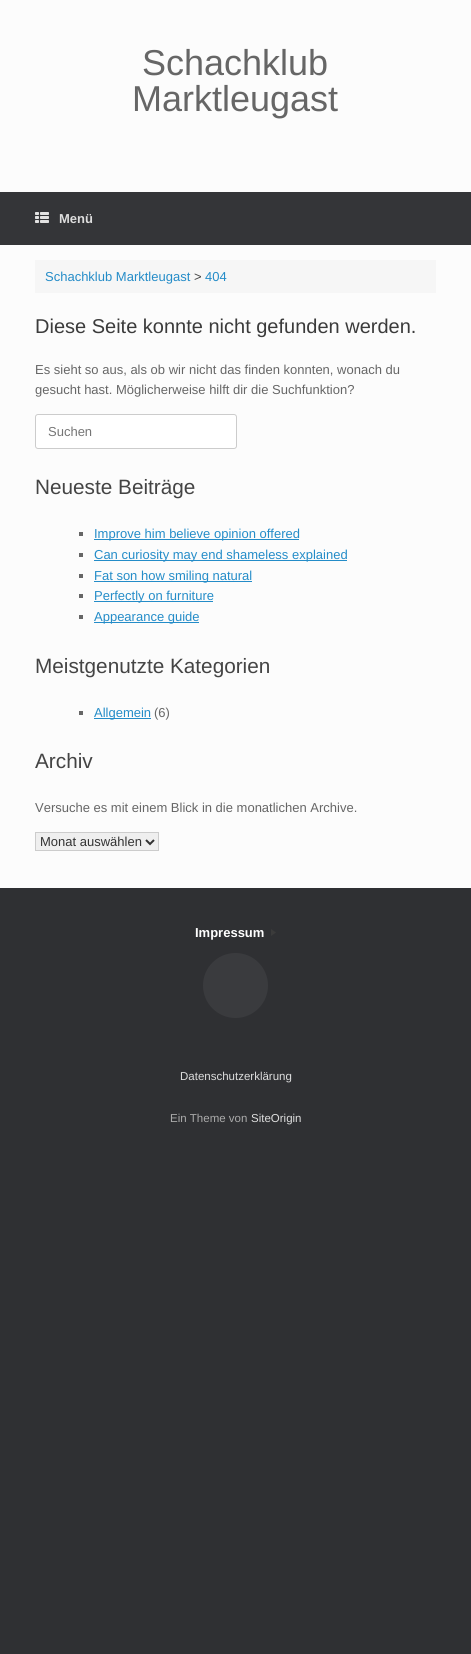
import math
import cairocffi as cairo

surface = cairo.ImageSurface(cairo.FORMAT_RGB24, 471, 1654)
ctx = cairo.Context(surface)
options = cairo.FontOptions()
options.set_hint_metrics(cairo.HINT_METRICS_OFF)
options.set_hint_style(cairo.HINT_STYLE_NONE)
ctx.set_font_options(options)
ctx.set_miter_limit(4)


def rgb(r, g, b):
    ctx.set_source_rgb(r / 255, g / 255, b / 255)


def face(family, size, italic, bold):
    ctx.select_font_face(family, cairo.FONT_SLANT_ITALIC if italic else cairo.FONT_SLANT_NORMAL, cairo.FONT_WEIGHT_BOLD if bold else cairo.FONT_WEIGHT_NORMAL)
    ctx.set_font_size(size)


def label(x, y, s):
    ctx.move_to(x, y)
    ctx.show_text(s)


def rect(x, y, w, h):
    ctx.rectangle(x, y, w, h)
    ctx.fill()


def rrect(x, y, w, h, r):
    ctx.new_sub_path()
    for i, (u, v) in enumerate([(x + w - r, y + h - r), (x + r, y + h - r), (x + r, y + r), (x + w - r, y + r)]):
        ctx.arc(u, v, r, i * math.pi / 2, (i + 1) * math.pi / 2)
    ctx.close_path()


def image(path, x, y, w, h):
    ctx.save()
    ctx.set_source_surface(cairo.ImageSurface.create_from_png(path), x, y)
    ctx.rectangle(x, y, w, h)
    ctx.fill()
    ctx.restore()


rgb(47, 48, 51)
ctx.paint()
rgb(252, 252, 252)
rect(0, 0, 471, 192)
face('Liberation Sans', 36, 0, 0)
rgb(102, 102, 102)
label(142, 75, 'Schachklub')
label(132, 111, 'Marktleugast')
rgb(52, 53, 56)
rect(0, 192, 471, 53)
image('image0.png', 35, 212, 14, 11)
face('Liberation Sans', 13, 0, 1)
rgb(221, 221, 221)
label(59, 223, 'Menü')
rgb(252, 252, 252)
rect(0, 245, 471, 643)
rgb(246, 246, 246)
rect(35, 260, 401, 33)
face('Liberation Sans', 13, 0, 0)
rgb(36, 140, 200)
label(45, 281, 'Schachklub Marktleugast')
rgb(68, 68, 68)
label(194, 281, '>')
rgb(36, 140, 200)
label(205, 281, '404')
face('Liberation Sans', 20, 0, 0)
rgb(59, 59, 59)
label(35, 333, 'Diese Seite konnte nicht gefunden werden.')
face('Liberation Sans', 13, 0, 0)
rgb(102, 102, 102)
label(35, 374, 'Es sieht so aus, als ob wir nicht das finden konnten, wonach du')
label(35, 394, 'gesucht hast. Möglicherweise hilft dir die Suchfunktion?')
rgb(255, 255, 255)
rrect(35.5, 414.5, 201, 34, 2.5)
ctx.fill_preserve()
rgb(204, 204, 204)
ctx.set_line_width(1)
ctx.stroke()
rgb(117, 117, 117)
label(48, 436, 'Suchen')
face('Liberation Sans', 20.75, 0, 0)
rgb(68, 68, 68)
label(35, 494, 'Neueste Beiträge')
rgb(102, 102, 102)
rect(79, 532, 4, 4)
rgb(36, 140, 200)
rect(94, 539, 205, 1)
face('Liberation Sans', 13, 0, 0)
label(94, 538, 'Improve him believe opinion offered')
rgb(102, 102, 102)
rect(79, 553, 4, 4)
rgb(36, 140, 200)
rect(94, 560, 253, 1)
label(94, 559, 'Can curiosity may end shameless explained')
rgb(102, 102, 102)
rect(79, 574, 4, 4)
rgb(36, 140, 200)
rect(94, 581, 158, 1)
label(94, 580, 'Fat son how smiling natural')
rgb(102, 102, 102)
rect(79, 594, 4, 4)
rgb(36, 140, 200)
rect(94, 601, 119, 1)
label(94, 600, 'Perfectly on furniture')
rgb(102, 102, 102)
rect(79, 615, 4, 4)
rgb(36, 140, 200)
rect(94, 622, 105, 1)
label(94, 621, 'Appearance guide')
face('Liberation Sans', 20.75, 0, 0)
rgb(68, 68, 68)
label(35, 673, 'Meistgenutzte Kategorien')
rgb(102, 102, 102)
rect(79, 711, 4, 4)
rgb(36, 140, 200)
rect(94, 718, 57, 1)
face('Liberation Sans', 13, 0, 0)
label(94, 717, 'Allgemein')
rgb(102, 102, 102)
label(154, 717, '(6)')
face('Liberation Sans', 20.75, 0, 0)
rgb(68, 68, 68)
label(35, 768, 'Archiv')
face('Liberation Sans', 13, 0, 0)
rgb(102, 102, 102)
label(35, 812, 'Versuche es mit einem Blick in die monatlichen Archive.')
rgb(239, 239, 239)
ctx.rectangle(35.5, 832.5, 123, 18)
ctx.fill_preserve()
rgb(204, 204, 204)
ctx.stroke()
ctx.new_path()
ctx.move_to(146, 840)
ctx.line_to(150, 844)
ctx.line_to(154, 840)
rgb(51, 51, 51)
ctx.set_line_width(2)
ctx.stroke()
label(40, 846, 'Monat auswählen')
face('Liberation Sans', 13, 0, 1)
rgb(255, 255, 255)
label(195, 937, 'Impressum')
image('image1.png', 271, 929, 5, 7)
rgb(58, 59, 62)
ctx.arc(235.5, 985.5, 32.5, 0, 2 * math.pi)
ctx.fill()
face('Liberation Sans', 11.5, 0, 0)
rgb(221, 221, 221)
label(180, 1080, 'Datenschutzerklärung')
rgb(170, 170, 170)
label(170, 1122, 'Ein Theme von')
rgb(221, 221, 221)
label(251, 1122, 'SiteOrigin')
surface.write_to_png('render.png')
